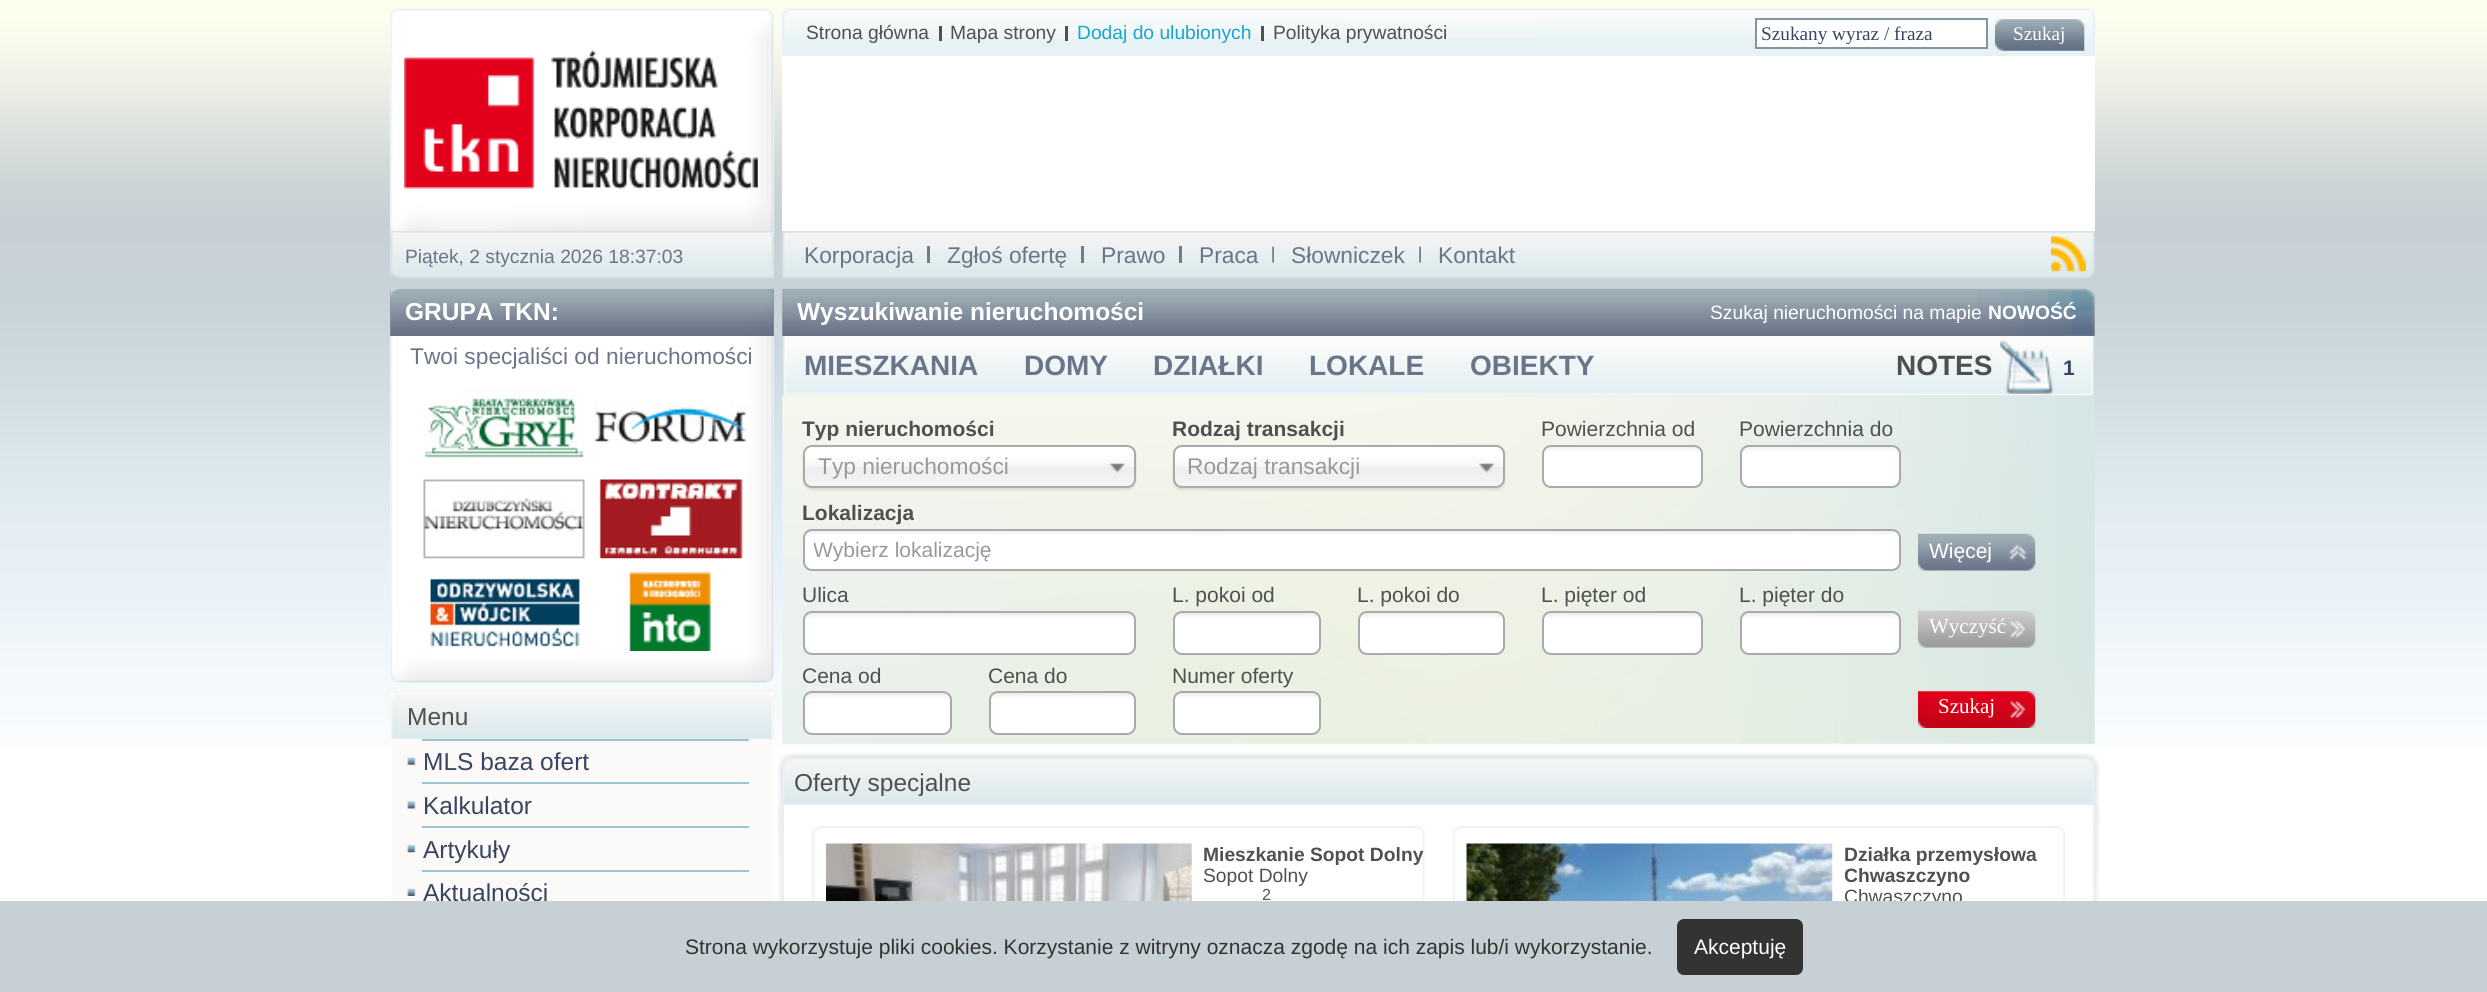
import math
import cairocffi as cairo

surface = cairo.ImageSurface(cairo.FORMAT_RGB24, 2487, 992)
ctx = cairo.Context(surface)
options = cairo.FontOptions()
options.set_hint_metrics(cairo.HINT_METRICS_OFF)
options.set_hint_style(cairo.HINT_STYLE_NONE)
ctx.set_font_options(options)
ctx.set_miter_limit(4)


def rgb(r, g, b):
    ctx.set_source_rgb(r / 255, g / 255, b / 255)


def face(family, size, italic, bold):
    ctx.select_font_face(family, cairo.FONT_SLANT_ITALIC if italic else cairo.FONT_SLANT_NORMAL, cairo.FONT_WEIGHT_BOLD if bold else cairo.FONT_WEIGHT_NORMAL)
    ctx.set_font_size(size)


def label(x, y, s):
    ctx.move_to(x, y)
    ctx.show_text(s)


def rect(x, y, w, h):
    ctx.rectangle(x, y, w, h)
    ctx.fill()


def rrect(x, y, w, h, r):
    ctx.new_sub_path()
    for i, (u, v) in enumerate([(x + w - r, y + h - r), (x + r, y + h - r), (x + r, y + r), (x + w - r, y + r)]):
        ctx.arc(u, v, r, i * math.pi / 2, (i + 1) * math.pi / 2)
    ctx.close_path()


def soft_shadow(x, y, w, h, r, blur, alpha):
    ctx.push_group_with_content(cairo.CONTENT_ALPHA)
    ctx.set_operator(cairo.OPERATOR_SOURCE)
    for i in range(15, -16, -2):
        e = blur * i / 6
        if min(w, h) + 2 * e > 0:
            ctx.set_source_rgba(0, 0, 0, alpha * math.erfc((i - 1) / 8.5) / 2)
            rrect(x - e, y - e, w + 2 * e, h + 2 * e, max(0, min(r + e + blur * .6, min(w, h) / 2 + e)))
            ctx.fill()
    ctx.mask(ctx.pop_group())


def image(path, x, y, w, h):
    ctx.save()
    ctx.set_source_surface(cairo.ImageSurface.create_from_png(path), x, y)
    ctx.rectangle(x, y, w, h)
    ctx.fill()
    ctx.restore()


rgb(255, 255, 255)
ctx.paint()
image('image0.png', 0, 0, 2487, 748)
rgb(255, 255, 255)
rect(390, 9, 384, 224)
image('image1.png', 390, 8, 384, 225)
image('image2.png', 404, 50, 354, 139)
rgb(228, 237, 239)
rect(390, 233, 384, 45)
image('image3.png', 390, 232, 384, 47)
face('Liberation Sans', 19.25, 0, 0)
rgb(107, 116, 137)
label(405, 263, 'Piątek, 2 stycznia 2026 18:37:03')
rgb(255, 255, 255)
rect(390, 336, 384, 347)
image('image4.png', 390, 288, 384, 395)
rgb(137, 149, 162)
rect(390, 289, 384, 47)
image('image5.png', 390, 288, 384, 48)
face('Liberation Sans', 24.5, 0, 1)
rgb(255, 255, 255)
label(405, 320, 'GRUPA TKN:')
face('Liberation Sans', 22.75, 0, 0)
rgb(107, 116, 137)
label(410, 364, 'Twoi specjaliści od nieruchomości')
image('image6.png', 423, 387, 161, 71)
image('image7.png', 594, 401, 154, 43)
image('image8.png', 423, 479, 162, 80)
image('image9.png', 599, 479, 145, 80)
image('image10.png', 429, 578, 151, 73)
image('image11.png', 620, 572, 96, 79)
rgb(251, 250, 248)
rect(392, 739, 380, 162)
rgb(230, 238, 239)
rect(390, 693, 384, 46)
image('image12.png', 390, 693, 384, 46)
face('Liberation Sans', 24.5, 0, 0)
rgb(80, 80, 80)
label(407, 725, 'Menu')
rgb(255, 254, 254)
rect(772, 739, 2, 9)
rect(390, 739, 2, 9)
image('image13.png', 407, 757, 9, 8)
rgb(154, 197, 213)
rect(422, 739, 327, 2)
rgb(56, 68, 97)
label(423, 770, 'MLS baza ofert')
image('image14.png', 407, 801, 9, 8)
rgb(154, 197, 213)
rect(422, 782, 327, 2)
rgb(56, 68, 97)
label(423, 814, 'Kalkulator')
image('image15.png', 407, 844, 9, 9)
rgb(154, 197, 213)
rect(422, 826, 327, 2)
rgb(56, 68, 97)
label(423, 858, 'Artykuły')
image('image16.png', 407, 888, 9, 8)
rgb(154, 197, 213)
rect(422, 870, 327, 2)
rgb(56, 68, 97)
label(423, 901, 'Aktualności')
rgb(231, 242, 244)
rect(782, 9, 1313, 47)
image('image17.png', 782, 8, 1313, 31)
face('Liberation Sans', 19.25, 0, 0)
rgb(80, 80, 80)
label(806, 39, 'Strona główna')
label(950, 39, 'Mapa strony')
rect(939, 26, 3, 15)
rgb(25, 165, 209)
label(1077, 39, 'Dodaj do ulubionych')
rgb(80, 80, 80)
rect(1065, 26, 3, 15)
label(1273, 39, 'Polityka prywatności')
rect(1261, 26, 3, 15)
rgb(255, 255, 255)
ctx.rectangle(1756, 19, 231, 29)
ctx.fill_preserve()
rgb(130, 150, 159)
ctx.stroke()
ctx.save()
ctx.rectangle(1761, 23, 222, 21)
ctx.clip()
face('Liberation Serif', 19.25, 0, 0)
rgb(56, 68, 97)
label(1761, 40, 'Szukany wyraz / fraza')
ctx.restore()
image('image18.png', 1995, 19, 90, 32)
face('Liberation Serif', 19.25, 0, 0)
rgb(255, 255, 255)
label(2013, 40, 'Szukaj')
rect(782, 56, 1313, 175)
image('image19.png', 782, 231, 1313, 48)
face('Liberation Sans', 22.75, 0, 0)
rgb(107, 116, 137)
label(804, 263, 'Korporacja')
rgb(114, 123, 143)
rect(927, 246, 3, 17)
rgb(107, 116, 137)
label(947, 263, 'Zgłoś ofertę')
rgb(114, 123, 143)
rect(1081, 246, 3, 17)
rgb(107, 116, 137)
label(1101, 263, 'Prawo')
rgb(114, 123, 143)
rect(1179, 246, 3, 17)
rgb(107, 116, 137)
label(1199, 263, 'Praca')
image('image20.png', 1272, 246, 2, 17)
label(1291, 263, 'Słowniczek')
image('image20.png', 1419, 246, 2, 17)
label(1438, 263, 'Kontakt')
image('image21.png', 2051, 236, 35, 36)
image('image22.png', 782, 288, 1313, 48)
face('Liberation Sans', 24.5, 0, 1)
rgb(255, 255, 255)
label(797, 320, 'Wyszukiwanie nieruchomości')
face('Liberation Sans', 19.25, 0, 0)
label(1710, 319, 'Szukaj nieruchomości na mapie')
face('Liberation Sans', 19.25, 0, 1)
label(1988, 319, 'NOWOŚĆ')
image('image23.png', 782, 336, 1313, 60)
face('Liberation Sans', 28, 0, 1)
rgb(107, 116, 137)
label(804, 375, 'MIESZKANIA')
label(1024, 375, 'DOMY')
label(1153, 375, 'DZIAŁKI')
label(1309, 375, 'LOKALE')
label(1470, 375, 'OBIEKTY')
rgb(80, 80, 80)
label(1896, 375, 'NOTES')
image('image24.png', 2000, 340, 53, 54)
face('Liberation Sans', 21, 0, 1)
rgb(56, 68, 97)
label(2063, 375, '1')
image('image25.png', 782, 395, 1313, 349)
rgb(80, 80, 80)
label(802, 436, 'Typ nieruchomości')
rgb(0, 0, 0)
soft_shadow(803, 446, 333, 44, 9, 1, 0.1)
gradient = cairo.LinearGradient(970, 446, 970, 487)
gradient.add_color_stop_rgba(0.2, 1, 1, 1, 1)
gradient.add_color_stop_rgba(0.5, 0.965, 0.965, 0.965, 1)
gradient.add_color_stop_rgba(0.52, 0.933, 0.933, 0.933, 1)
gradient.add_color_stop_rgba(1, 0.957, 0.957, 0.957, 1)
ctx.set_source(gradient)
rrect(805, 446, 329, 41, 7)
ctx.fill()
rrect(804, 446, 331, 41, 8)
rgb(170, 170, 170)
ctx.stroke()
face('Liberation Sans', 22.75, 0, 0)
rgb(153, 153, 153)
label(818, 474, 'Typ nieruchomości')
image('image26.png', 1109, 463, 17, 10)
face('Liberation Sans', 21, 0, 1)
rgb(80, 80, 80)
label(1172, 436, 'Rodzaj transakcji')
rgb(0, 0, 0)
soft_shadow(1173, 446, 332, 44, 9, 1, 0.1)
gradient = cairo.LinearGradient(1339, 446, 1339, 487)
gradient.add_color_stop_rgba(0.2, 1, 1, 1, 1)
gradient.add_color_stop_rgba(0.5, 0.965, 0.965, 0.965, 1)
gradient.add_color_stop_rgba(0.52, 0.933, 0.933, 0.933, 1)
gradient.add_color_stop_rgba(1, 0.957, 0.957, 0.957, 1)
ctx.set_source(gradient)
rrect(1174, 446, 329, 41, 7)
ctx.fill()
rrect(1174, 446, 330, 41, 8)
rgb(170, 170, 170)
ctx.stroke()
face('Liberation Sans', 22.75, 0, 0)
rgb(153, 153, 153)
label(1187, 474, 'Rodzaj transakcji')
image('image27.png', 1478, 463, 17, 10)
face('Liberation Sans', 21, 0, 0)
rgb(80, 80, 80)
label(1541, 436, 'Powierzchnia od')
gradient = cairo.LinearGradient(1622, 446, 1622, 487)
gradient.add_color_stop_rgba(0.01, 0.933, 0.933, 0.933, 1)
gradient.add_color_stop_rgba(0.15, 1, 1, 1, 1)
ctx.set_source(gradient)
rrect(1544, 446, 157, 41, 7)
ctx.fill()
rrect(1543, 446, 159, 41, 8)
rgb(170, 170, 170)
ctx.stroke()
rgb(80, 80, 80)
label(1739, 436, 'Powierzchnia do')
gradient = cairo.LinearGradient(1820, 446, 1820, 487)
gradient.add_color_stop_rgba(0.01, 0.933, 0.933, 0.933, 1)
gradient.add_color_stop_rgba(0.15, 1, 1, 1, 1)
ctx.set_source(gradient)
rrect(1741, 446, 158, 41, 7)
ctx.fill()
rrect(1741, 446, 159, 41, 8)
rgb(170, 170, 170)
ctx.stroke()
face('Liberation Sans', 21, 0, 1)
rgb(80, 80, 80)
label(802, 520, 'Lokalizacja')
gradient = cairo.LinearGradient(1352, 530, 1352, 569)
gradient.add_color_stop_rgba(0.01, 0.933, 0.933, 0.933, 1)
gradient.add_color_stop_rgba(0.15, 1, 1, 1, 1)
ctx.set_source(gradient)
rrect(805, 530, 1094, 39, 7)
ctx.fill()
rrect(804, 530, 1096, 40, 8)
rgb(170, 170, 170)
ctx.stroke()
ctx.save()
ctx.rectangle(814, 539, 222, 25)
ctx.clip()
face('Liberation Sans', 21, 0, 0)
rgb(153, 153, 153)
label(813, 557, 'Wybierz lokalizację')
ctx.restore()
image('image28.png', 1918, 533, 118, 38)
face('Liberation Sans', 21, 0, 0)
rgb(255, 255, 255)
label(1929, 558, 'Więcej')
rgb(80, 80, 80)
label(802, 602, 'Ulica')
gradient = cairo.LinearGradient(970, 613, 970, 653)
gradient.add_color_stop_rgba(0.01, 0.933, 0.933, 0.933, 1)
gradient.add_color_stop_rgba(0.15, 1, 1, 1, 1)
ctx.set_source(gradient)
rrect(805, 613, 329, 40, 7)
ctx.fill()
rrect(804, 612, 331, 42, 8)
rgb(170, 170, 170)
ctx.stroke()
rgb(80, 80, 80)
label(1172, 602, 'L. pokoi od')
gradient = cairo.LinearGradient(1247, 613, 1247, 653)
gradient.add_color_stop_rgba(0.01, 0.933, 0.933, 0.933, 1)
gradient.add_color_stop_rgba(0.15, 1, 1, 1, 1)
ctx.set_source(gradient)
rrect(1174, 613, 146, 40, 7)
ctx.fill()
rrect(1174, 612, 146, 42, 8)
rgb(170, 170, 170)
ctx.stroke()
rgb(80, 80, 80)
label(1357, 602, 'L. pokoi do')
gradient = cairo.LinearGradient(1432, 613, 1432, 653)
gradient.add_color_stop_rgba(0.01, 0.933, 0.933, 0.933, 1)
gradient.add_color_stop_rgba(0.15, 1, 1, 1, 1)
ctx.set_source(gradient)
rrect(1360, 613, 143, 40, 7)
ctx.fill()
rrect(1359, 612, 145, 42, 8)
rgb(170, 170, 170)
ctx.stroke()
rgb(80, 80, 80)
label(1541, 602, 'L. pięter od')
gradient = cairo.LinearGradient(1622, 613, 1622, 653)
gradient.add_color_stop_rgba(0.01, 0.933, 0.933, 0.933, 1)
gradient.add_color_stop_rgba(0.15, 1, 1, 1, 1)
ctx.set_source(gradient)
rrect(1544, 613, 157, 40, 7)
ctx.fill()
rrect(1543, 612, 159, 42, 8)
rgb(170, 170, 170)
ctx.stroke()
rgb(80, 80, 80)
label(1739, 602, 'L. pięter do')
gradient = cairo.LinearGradient(1820, 613, 1820, 653)
gradient.add_color_stop_rgba(0.01, 0.933, 0.933, 0.933, 1)
gradient.add_color_stop_rgba(0.15, 1, 1, 1, 1)
ctx.set_source(gradient)
rrect(1741, 613, 158, 40, 7)
ctx.fill()
rrect(1741, 612, 159, 42, 8)
rgb(170, 170, 170)
ctx.stroke()
image('image29.png', 1918, 610, 118, 38)
face('Liberation Serif', 21, 0, 0)
rgb(255, 255, 255)
label(1929, 633, 'Wyczyść')
face('Liberation Sans', 21, 0, 0)
rgb(80, 80, 80)
label(802, 683, 'Cena od')
gradient = cairo.LinearGradient(878, 693, 878, 733)
gradient.add_color_stop_rgba(0.01, 0.933, 0.933, 0.933, 1)
gradient.add_color_stop_rgba(0.15, 1, 1, 1, 1)
ctx.set_source(gradient)
rrect(805, 693, 145, 40, 7)
ctx.fill()
rrect(804, 692, 147, 42, 8)
rgb(170, 170, 170)
ctx.stroke()
rgb(80, 80, 80)
label(988, 683, 'Cena do')
gradient = cairo.LinearGradient(1062, 693, 1062, 733)
gradient.add_color_stop_rgba(0.01, 0.933, 0.933, 0.933, 1)
gradient.add_color_stop_rgba(0.15, 1, 1, 1, 1)
ctx.set_source(gradient)
rrect(991, 693, 143, 40, 7)
ctx.fill()
rrect(990, 692, 145, 42, 8)
rgb(170, 170, 170)
ctx.stroke()
rgb(80, 80, 80)
label(1172, 683, 'Numer oferty')
gradient = cairo.LinearGradient(1247, 693, 1247, 733)
gradient.add_color_stop_rgba(0.01, 0.933, 0.933, 0.933, 1)
gradient.add_color_stop_rgba(0.15, 1, 1, 1, 1)
ctx.set_source(gradient)
rrect(1174, 693, 146, 40, 7)
ctx.fill()
rrect(1174, 692, 146, 42, 8)
rgb(170, 170, 170)
ctx.stroke()
image('image30.png', 1918, 691, 118, 37)
face('Liberation Serif', 21, 0, 0)
rgb(255, 255, 255)
label(1938, 713, 'Szukaj')
image('image31.png', 777, 753, 1323, 52)
face('Liberation Sans', 24.5, 0, 0)
rgb(80, 80, 80)
label(794, 791, 'Oferty specjalne')
image('image32.png', 777, 805, 1323, 96)
rgb(239, 239, 239)
rect(2093, 805, 2, 96)
rect(782, 805, 2, 96)
image('image33.png', 812, 826, 613, 75)
image('image34.png', 812, 826, 612, 6)
image('image35.png', 826, 843, 366, 58)
face('Liberation Sans', 19.25, 0, 1)
rgb(80, 80, 80)
label(1203, 861, 'Mieszkanie Sopot Dolny')
face('Liberation Sans', 19.25, 0, 0)
label(1203, 882, 'Sopot Dolny')
face('Liberation Sans', 16, 0, 0)
label(1262, 900, '2')
image('image36.png', 1452, 826, 613, 75)
image('image37.png', 1453, 826, 612, 6)
image('image38.png', 1466, 843, 367, 58)
ctx.save()
ctx.rectangle(1845, 844, 220, 42)
ctx.clip()
face('Liberation Sans', 19.25, 0, 1)
label(1844, 861, 'Działka przemysłowa')
label(1844, 882, 'Chwaszczyno')
ctx.restore()
face('Liberation Sans', 19.25, 0, 0)
label(1844, 903, 'Chwaszczyno')
rgb(199, 209, 213)
rect(0, 901, 2487, 91)
face('Liberation Sans', 21, 0, 0)
rgb(51, 51, 51)
label(685, 954, 'Strona wykorzystuje pliki cookies. Korzystanie z witryny oznacza zgodę na ich zapis lub/i wykorzystanie.')
rrect(1677, 919, 126, 56, 7)
ctx.fill()
rgb(255, 255, 255)
label(1694, 954, 'Akceptuję')
surface.write_to_png('render.png')
